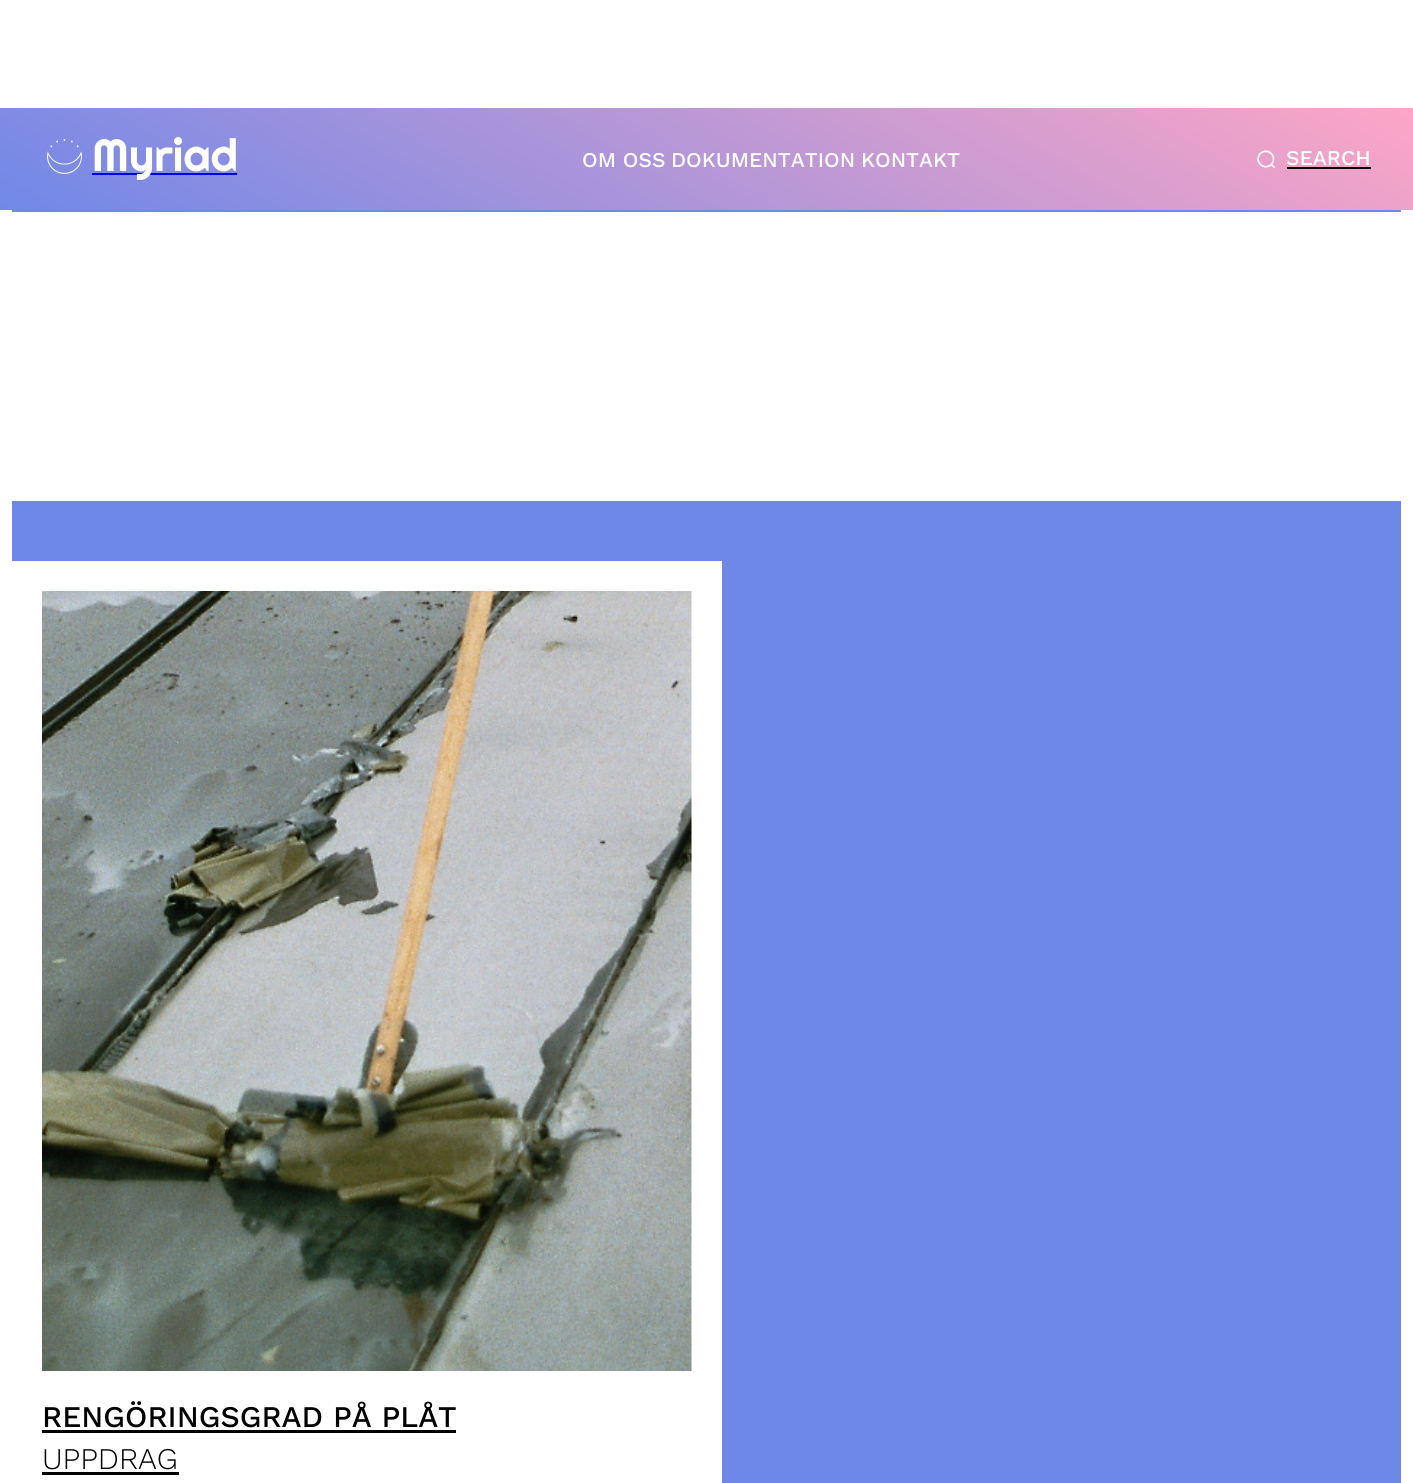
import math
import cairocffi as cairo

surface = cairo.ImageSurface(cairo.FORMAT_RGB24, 1413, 1483)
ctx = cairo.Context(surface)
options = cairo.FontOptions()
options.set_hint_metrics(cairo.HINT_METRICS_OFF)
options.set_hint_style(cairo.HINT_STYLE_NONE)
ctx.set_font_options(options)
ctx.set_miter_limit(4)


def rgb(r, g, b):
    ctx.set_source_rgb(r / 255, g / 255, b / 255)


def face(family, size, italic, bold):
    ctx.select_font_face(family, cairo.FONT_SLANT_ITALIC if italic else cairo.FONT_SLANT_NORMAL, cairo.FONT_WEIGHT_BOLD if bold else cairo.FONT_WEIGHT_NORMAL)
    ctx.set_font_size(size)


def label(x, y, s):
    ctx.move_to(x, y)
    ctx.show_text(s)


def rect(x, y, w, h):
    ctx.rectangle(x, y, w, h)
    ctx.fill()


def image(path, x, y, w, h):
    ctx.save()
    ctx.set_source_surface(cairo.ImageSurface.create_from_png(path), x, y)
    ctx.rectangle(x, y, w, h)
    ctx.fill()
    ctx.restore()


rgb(255, 255, 255)
ctx.paint()
rgb(110, 136, 232)
rect(12, 210, 1389, 2)
gradient = cairo.LinearGradient(503, 511, 910, -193)
gradient.add_color_stop_rgba(0, 0.431, 0.533, 0.91, 1)
gradient.add_color_stop_rgba(1, 1, 0.651, 0.773, 1)
ctx.set_source(gradient)
rect(0, 108, 1413, 102)
image('image0.png', 47, 139, 35, 35)
rgb(0, 0, 238)
rect(92, 173, 145, 2)
face('Righteous', 45, 0, 0)
rgb(255, 255, 255)
label(92, 171, 'Myriad')
face('Work Sans Medium', 21, 0, 0)
label(582, 167, 'OM OSS')
label(671, 167, 'DOKUMENTATION')
label(861, 167, 'KONTAKT')
image('image1.png', 1257, 150, 18, 19)
label(1286, 165, 'SEARCH')
rgb(0, 0, 0)
rect(1287, 167, 84, 2)
rgb(110, 136, 232)
rect(12, 501, 1389, 982)
rgb(255, 255, 255)
rect(12, 561, 710, 922)
image('image2.png', 42, 591, 650, 780)
face('Work Sans Medium', 30, 0, 0)
rgb(0, 0, 0)
label(42, 1427, 'RENGÖRINGSGRAD PÅ PLÅT')
rect(42, 1430, 414, 3)
face('Work Sans Light', 30, 0, 0)
label(42, 1469, 'UPPDRAG')
rect(42, 1472, 137, 3)
surface.write_to_png('render.png')
